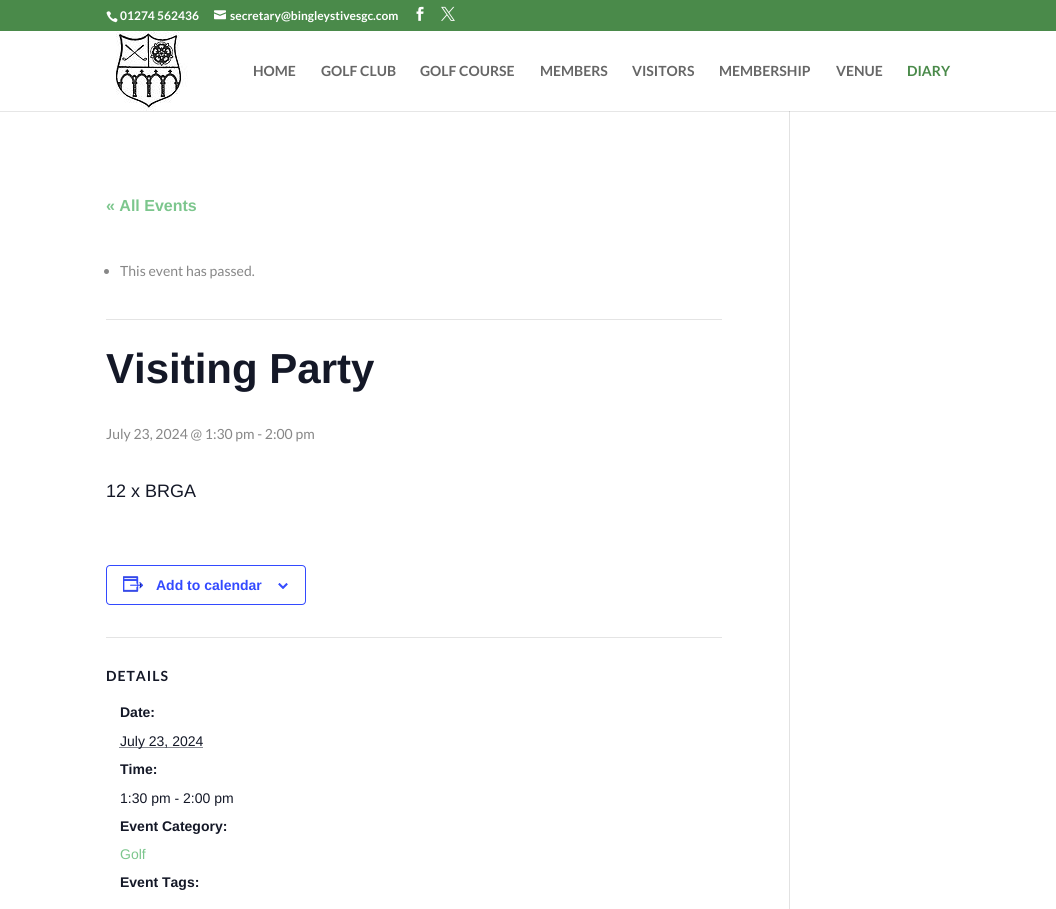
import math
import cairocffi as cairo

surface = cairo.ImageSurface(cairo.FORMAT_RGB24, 1056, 909)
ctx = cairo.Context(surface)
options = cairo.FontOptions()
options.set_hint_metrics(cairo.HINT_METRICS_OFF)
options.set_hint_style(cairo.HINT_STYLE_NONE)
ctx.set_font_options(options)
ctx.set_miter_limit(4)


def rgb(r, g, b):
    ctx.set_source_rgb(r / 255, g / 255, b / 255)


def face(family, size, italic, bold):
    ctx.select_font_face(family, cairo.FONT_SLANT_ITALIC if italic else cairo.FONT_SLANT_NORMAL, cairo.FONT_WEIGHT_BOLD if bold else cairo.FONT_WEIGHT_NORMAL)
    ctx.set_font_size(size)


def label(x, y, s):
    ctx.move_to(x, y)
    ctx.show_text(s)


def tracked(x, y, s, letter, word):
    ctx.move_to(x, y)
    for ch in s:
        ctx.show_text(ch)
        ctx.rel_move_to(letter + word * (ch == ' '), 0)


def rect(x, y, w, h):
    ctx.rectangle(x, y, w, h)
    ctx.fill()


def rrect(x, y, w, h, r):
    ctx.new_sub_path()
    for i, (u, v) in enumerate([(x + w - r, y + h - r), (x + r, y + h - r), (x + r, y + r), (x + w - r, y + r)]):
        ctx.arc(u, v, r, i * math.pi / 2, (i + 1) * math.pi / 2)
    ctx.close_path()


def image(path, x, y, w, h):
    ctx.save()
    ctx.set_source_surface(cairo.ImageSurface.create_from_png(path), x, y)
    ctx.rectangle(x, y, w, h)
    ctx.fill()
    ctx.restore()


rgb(255, 255, 255)
ctx.paint()
rgb(230, 230, 230)
rect(0, 111, 1056, 1)
rgb(74, 138, 74)
rect(0, 0, 1056, 31)
image('image0.png', 106, 11, 12, 12)
face('Lato', 12, 0, 1)
rgb(255, 255, 255)
label(120, 20, '01274 562436')
image('image1.png', 214, 10, 12, 10)
label(230, 20, 'secretary@bingleystivesgc.com')
image('image2.png', 416, 6, 8, 15)
image('image3.png', 441, 6, 14, 15)
rgb(226, 226, 226)
rect(789, 106, 1, 803)
rgb(255, 255, 255)
rect(789, 106, 1, 5)
image('image4.png', 116, 31, 72, 80)
face('Lato', 14, 0, 1)
rgb(102, 102, 102)
label(253, 76, 'HOME')
label(321, 76, 'GOLF CLUB')
label(420, 76, 'GOLF COURSE')
label(540, 76, 'MEMBERS')
label(632, 76, 'VISITORS')
label(719, 76, 'MEMBERSHIP')
label(836, 76, 'VENUE')
rgb(74, 138, 74)
label(907, 76, 'DIARY')
face('Liberation Sans', 16, 0, 1)
rgb(124, 198, 141)
label(106, 211, '« All Events')
rgb(228, 228, 228)
rect(106, 319, 616, 1)
rgb(135, 135, 135)
ctx.new_path()
ctx.arc(106.5, 271.5, 2.5, 0, 2 * math.pi)
ctx.fill()
face('Lato', 14, 0, 0)
label(120, 276, 'This event has passed.')
face('Liberation Sans', 42, 0, 1)
rgb(20, 24, 39)
label(106, 383, 'Visiting Party')
face('Lato', 14, 0, 0)
rgb(135, 135, 135)
label(106, 439, 'July 23, 2024 @ 1:30 pm - 2:00 pm')
face('Liberation Sans', 18, 0, 0)
rgb(20, 24, 39)
label(106, 497, '12 x BRGA')
rrect(106.5, 565.5, 199, 39, 3.5)
rgb(51, 74, 255)
ctx.set_line_width(1)
ctx.stroke()
image('image5.png', 123, 576, 21, 16)
face('Liberation Sans', 14, 0, 1)
label(156, 590, 'Add to calendar')
image('image6.png', 278, 583, 10, 6)
rgb(228, 228, 228)
rect(106, 637, 616, 1)
face('Lato', 14, 0, 1)
rgb(20, 24, 39)
tracked(106, 681, 'DETAILS', 1, 0)
face('Liberation Sans', 14, 0, 1)
label(120, 717, 'Date:')
ctx.new_path()
ctx.move_to(119.5, 747.5)
ctx.line_to(203, 747.5)
ctx.set_dash([1, 1])
ctx.stroke()
face('Liberation Sans', 14, 0, 0)
label(120, 746, 'July 23, 2024')
face('Liberation Sans', 14, 0, 1)
label(120, 774, 'Time:')
face('Liberation Sans', 14, 0, 0)
label(120, 803, '1:30 pm - 2:00 pm')
face('Liberation Sans', 14, 0, 1)
label(120, 831, 'Event Category:')
face('Liberation Sans', 14, 0, 0)
rgb(124, 198, 141)
label(120, 859, 'Golf')
face('Liberation Sans', 14, 0, 1)
rgb(20, 24, 39)
label(120, 887, 'Event Tags:')
rgb(203, 203, 203)
rect(789, 111, 1, 1)
surface.write_to_png('render.png')
